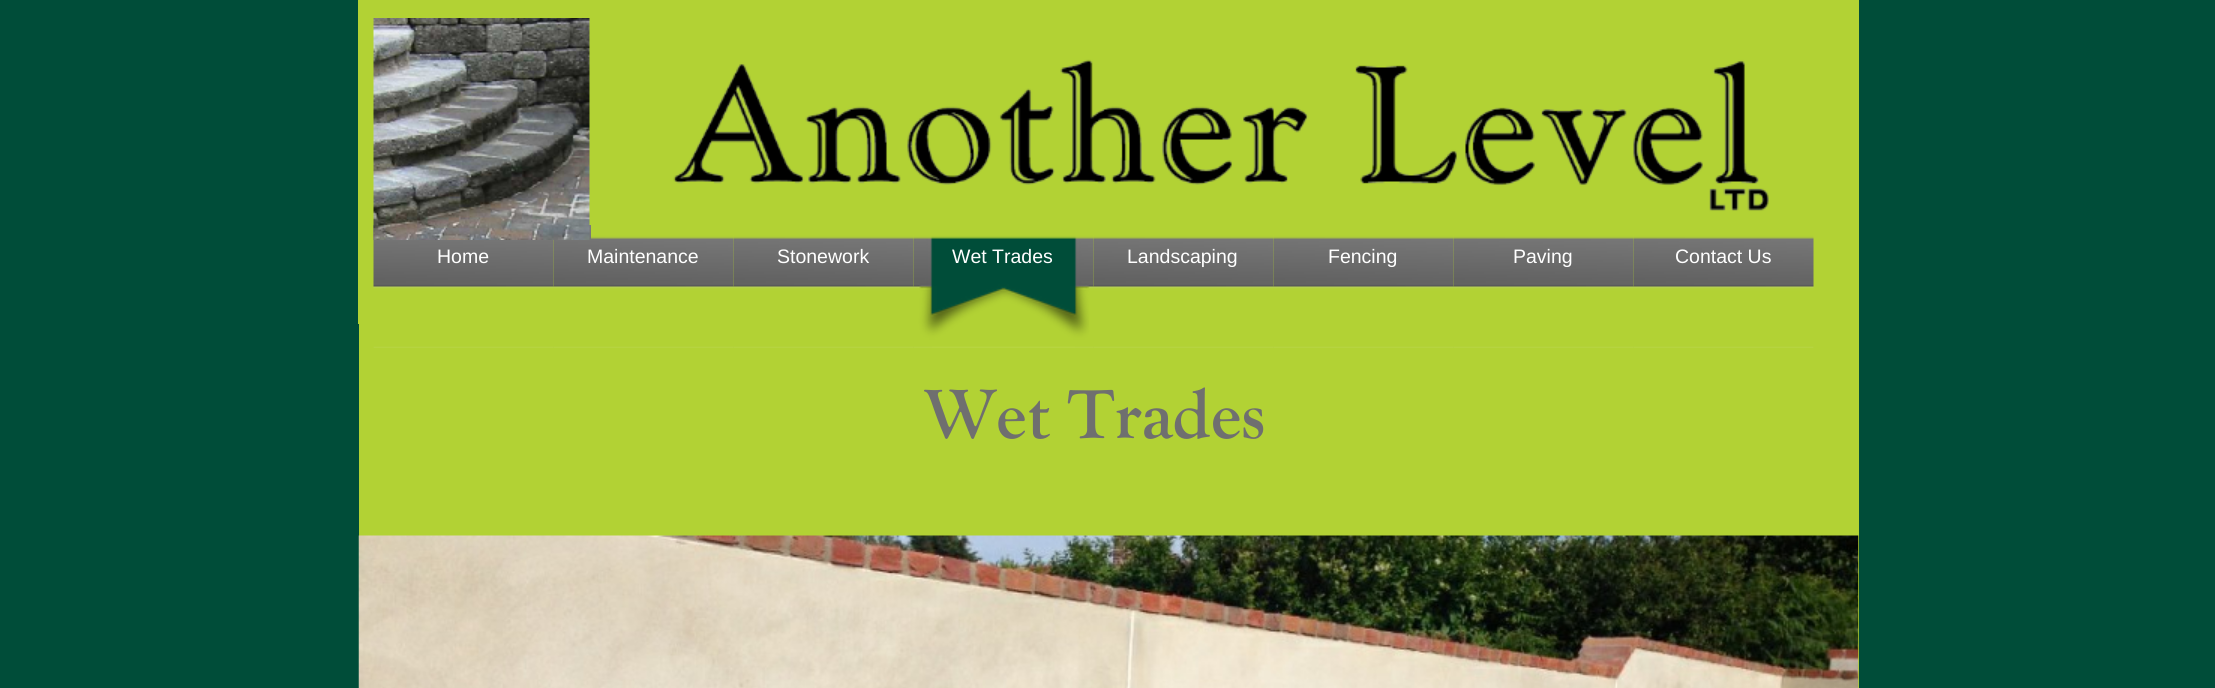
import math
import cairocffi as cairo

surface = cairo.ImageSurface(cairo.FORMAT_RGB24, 2215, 688)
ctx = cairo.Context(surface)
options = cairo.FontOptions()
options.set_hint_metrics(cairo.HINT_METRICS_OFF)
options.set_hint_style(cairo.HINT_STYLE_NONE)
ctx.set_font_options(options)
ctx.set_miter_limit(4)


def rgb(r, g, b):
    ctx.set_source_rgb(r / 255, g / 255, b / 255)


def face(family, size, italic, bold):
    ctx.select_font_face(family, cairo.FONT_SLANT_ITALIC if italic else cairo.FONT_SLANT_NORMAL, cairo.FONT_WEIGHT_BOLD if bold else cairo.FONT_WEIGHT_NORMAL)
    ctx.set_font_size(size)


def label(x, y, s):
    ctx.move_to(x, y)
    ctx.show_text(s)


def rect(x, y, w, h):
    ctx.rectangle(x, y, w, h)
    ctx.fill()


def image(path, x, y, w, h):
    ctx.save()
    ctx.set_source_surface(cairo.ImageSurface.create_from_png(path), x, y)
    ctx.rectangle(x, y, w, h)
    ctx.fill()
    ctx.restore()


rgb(0, 77, 57)
ctx.paint()
rgb(178, 210, 52)
rect(359, 0, 1500, 688)
rect(358, 0, 1, 324)
image('image2.png', 373, 225, 181, 123)
image('image3.png', 553, 225, 181, 123)
image('image0.png', 373, 18, 217, 222)
image('image4.png', 733, 235, 181, 113)
image('image5.png', 913, 235, 181, 113)
image('image6.png', 1093, 235, 181, 113)
image('image4.png', 1273, 235, 181, 113)
image('image6.png', 1453, 235, 181, 113)
image('image4.png', 1633, 235, 181, 113)
image('image1.png', 591, 59, 1223, 180)
face('Liberation Sans', 19.5, 0, 0)
rgb(255, 255, 255)
label(437, 263, 'Home')
label(587, 263, 'Maintenance')
label(777, 263, 'Stonework')
label(952, 263, 'Wet Trades')
label(1127, 263, 'Landscaping')
label(1328, 263, 'Fencing')
label(1513, 263, 'Paving')
label(1675, 263, 'Contact Us')
face('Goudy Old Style', 72, 0, 1)
rgb(111, 111, 111)
label(925, 438, 'Wet Trades')
image('image7.png', 358, 535, 1501, 153)
surface.write_to_png('render.png')
